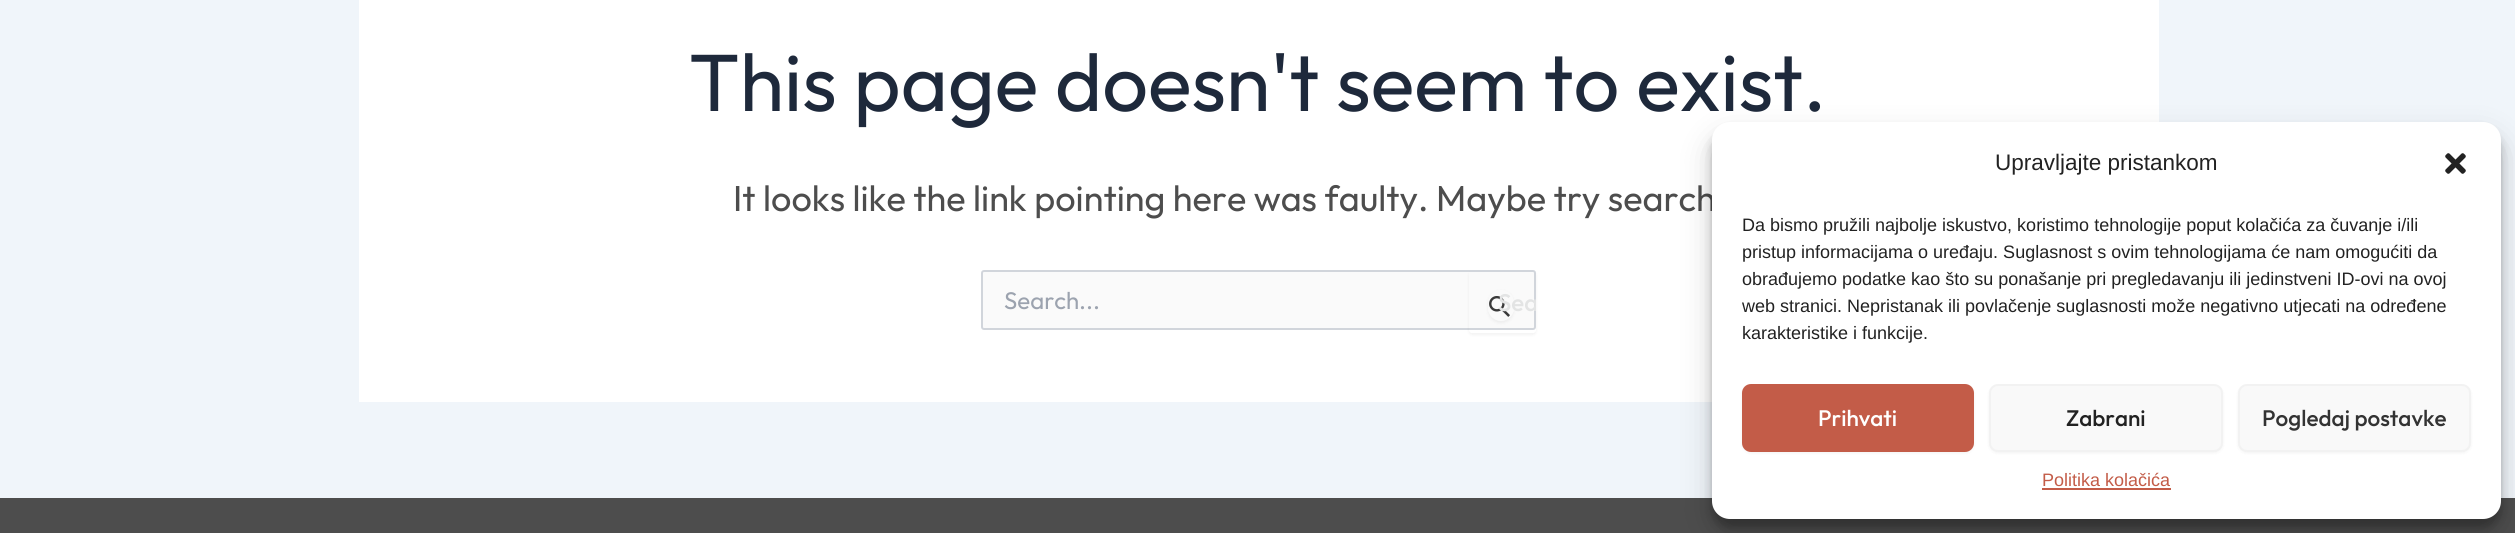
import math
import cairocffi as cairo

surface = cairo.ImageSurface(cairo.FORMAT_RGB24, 2515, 533)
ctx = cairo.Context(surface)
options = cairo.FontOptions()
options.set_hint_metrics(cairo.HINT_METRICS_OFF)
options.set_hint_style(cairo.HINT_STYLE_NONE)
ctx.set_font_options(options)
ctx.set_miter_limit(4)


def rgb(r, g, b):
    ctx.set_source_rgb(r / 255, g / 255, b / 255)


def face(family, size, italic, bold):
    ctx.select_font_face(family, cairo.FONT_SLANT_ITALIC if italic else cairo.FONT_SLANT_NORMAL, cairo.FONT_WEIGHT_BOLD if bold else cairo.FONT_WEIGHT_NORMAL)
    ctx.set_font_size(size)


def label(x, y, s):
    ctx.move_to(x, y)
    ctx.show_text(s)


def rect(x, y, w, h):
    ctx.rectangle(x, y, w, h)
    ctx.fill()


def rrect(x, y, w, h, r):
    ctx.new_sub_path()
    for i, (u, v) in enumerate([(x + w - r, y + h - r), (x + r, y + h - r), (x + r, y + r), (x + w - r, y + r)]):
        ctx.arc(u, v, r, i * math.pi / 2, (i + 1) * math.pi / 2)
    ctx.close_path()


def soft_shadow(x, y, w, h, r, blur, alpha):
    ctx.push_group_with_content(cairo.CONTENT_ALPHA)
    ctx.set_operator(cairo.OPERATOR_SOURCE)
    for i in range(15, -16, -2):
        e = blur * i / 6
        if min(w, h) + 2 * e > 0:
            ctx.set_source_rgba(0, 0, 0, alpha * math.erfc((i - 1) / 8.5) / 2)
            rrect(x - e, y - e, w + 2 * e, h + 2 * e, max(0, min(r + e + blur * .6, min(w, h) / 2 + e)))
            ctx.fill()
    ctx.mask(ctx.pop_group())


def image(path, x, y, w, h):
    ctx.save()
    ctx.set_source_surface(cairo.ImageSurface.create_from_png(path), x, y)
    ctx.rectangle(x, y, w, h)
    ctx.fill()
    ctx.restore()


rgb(240, 245, 250)
ctx.paint()
rgb(255, 255, 255)
rect(359, 0, 1800, 402)
face('Outfit', 81, 0, 0)
rgb(30, 41, 59)
label(689, 111, 'This page doesn\'t seem to exist.')
face('Outfit', 36, 0, 0)
rgb(77, 77, 77)
label(733, 211, 'It looks like the link pointing here was faulty. Maybe try search')
rgb(250, 250, 250)
rrect(982, 271, 553, 58, 2)
ctx.fill_preserve()
rgb(209, 213, 219)
ctx.stroke()
face('Outfit', 24, 0, 0)
rgb(156, 163, 175)
label(1004, 309, 'Search...')
ctx.save()
ctx.set_fill_rule(cairo.FILL_RULE_EVEN_ODD)
ctx.new_path()
ctx.move_to(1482, 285)
ctx.line_to(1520, 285)
ctx.line_to(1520, 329)
ctx.line_to(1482, 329)
ctx.close_path()
ctx.move_to(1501, 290)
ctx.curve_to(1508, 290, 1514, 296, 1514, 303)
ctx.line_to(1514, 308)
ctx.curve_to(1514, 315, 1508, 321, 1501, 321)
ctx.curve_to(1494, 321, 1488, 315, 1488, 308)
ctx.line_to(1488, 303)
ctx.curve_to(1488, 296, 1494, 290, 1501, 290)
ctx.close_path()
ctx.clip()
rgb(0, 0, 0)
soft_shadow(1488, 291, 26, 32, 13, 1.5, 0.05)
ctx.restore()
image('image0.png', 1489, 296, 21, 21)
ctx.save()
ctx.set_fill_rule(cairo.FILL_RULE_EVEN_ODD)
ctx.new_path()
ctx.move_to(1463, 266)
ctx.line_to(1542, 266)
ctx.line_to(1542, 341)
ctx.line_to(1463, 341)
ctx.close_path()
ctx.move_to(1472, 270)
ctx.line_to(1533, 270)
ctx.curve_to(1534.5, 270, 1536, 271.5, 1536, 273)
ctx.line_to(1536, 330)
ctx.curve_to(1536, 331.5, 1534.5, 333, 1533, 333)
ctx.line_to(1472, 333)
ctx.curve_to(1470.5, 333, 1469, 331.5, 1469, 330)
ctx.line_to(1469, 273)
ctx.curve_to(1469, 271.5, 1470.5, 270, 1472, 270)
ctx.close_path()
ctx.clip()
rgb(0, 0, 0)
soft_shadow(1469, 272, 67, 63, 3, 1.5, 0.05)
ctx.restore()
ctx.save()
rrect(1469, 270, 67, 63, 3)
ctx.clip()
face('Outfit Medium', 24, 0, 0)
rgb(227, 228, 228)
label(1498, 311, 'Sea')
ctx.restore()
rgb(77, 77, 77)
rect(0, 498, 2515, 35)
rgb(0, 0, 0)
soft_shadow(1712, 131, 789, 397, 18, 4.5, 0.23)
soft_shadow(1712, 137, 789, 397, 18, 15, 0.19)
rgb(255, 255, 255)
rrect(1712, 122, 789, 397, 18)
ctx.fill()
face('Liberation Sans', 22.5, 0, 0)
rgb(34, 34, 34)
label(1995, 170, 'Upravljajte pristankom')
image('image1.png', 2445, 153, 21, 21)
face('Liberation Sans', 18, 0, 0)
label(1742, 231, 'Da bismo pružili najbolje iskustvo, koristimo tehnologije poput kolačića za čuvanje i/ili')
label(1742, 258, 'pristup informacijama o uređaju. Suglasnost s ovim tehnologijama će nam omogućiti da')
label(1742, 285, 'obrađujemo podatke kao što su ponašanje pri pregledavanju ili jedinstveni ID-ovi na ovoj')
label(1742, 312, 'web stranici. Nepristanak ili povlačenje suglasnosti može negativno utjecati na određene')
label(1742, 339, 'karakteristike i funkcije.')
rgb(0, 0, 0)
soft_shadow(1742, 386, 232, 67, 9, 1.5, 0.05)
rgb(195, 92, 72)
rrect(1743, 385, 230, 66, 8)
ctx.fill_preserve()
ctx.stroke()
face('Outfit Medium', 22.5, 0, 0)
rgb(255, 255, 255)
label(1818, 426, 'Prihvati')
rgb(0, 0, 0)
soft_shadow(1989, 386, 234, 67, 9, 1.5, 0.05)
rgb(249, 249, 249)
rrect(1990, 385, 232, 66, 8)
ctx.fill_preserve()
rgb(242, 242, 242)
ctx.stroke()
rgb(34, 34, 34)
label(2066, 426, 'Zabrani')
rgb(0, 0, 0)
soft_shadow(2238, 386, 233, 67, 9, 1.5, 0.05)
rgb(249, 249, 249)
rrect(2239, 385, 231, 66, 8)
ctx.fill_preserve()
rgb(242, 242, 242)
ctx.stroke()
rgb(51, 51, 51)
label(2262, 426, 'Pogledaj postavke')
face('Liberation Sans', 18, 0, 0)
rgb(195, 92, 72)
label(2042, 486, 'Politika kolačića')
rect(2042, 488, 129, 2)
surface.write_to_png('render.png')
